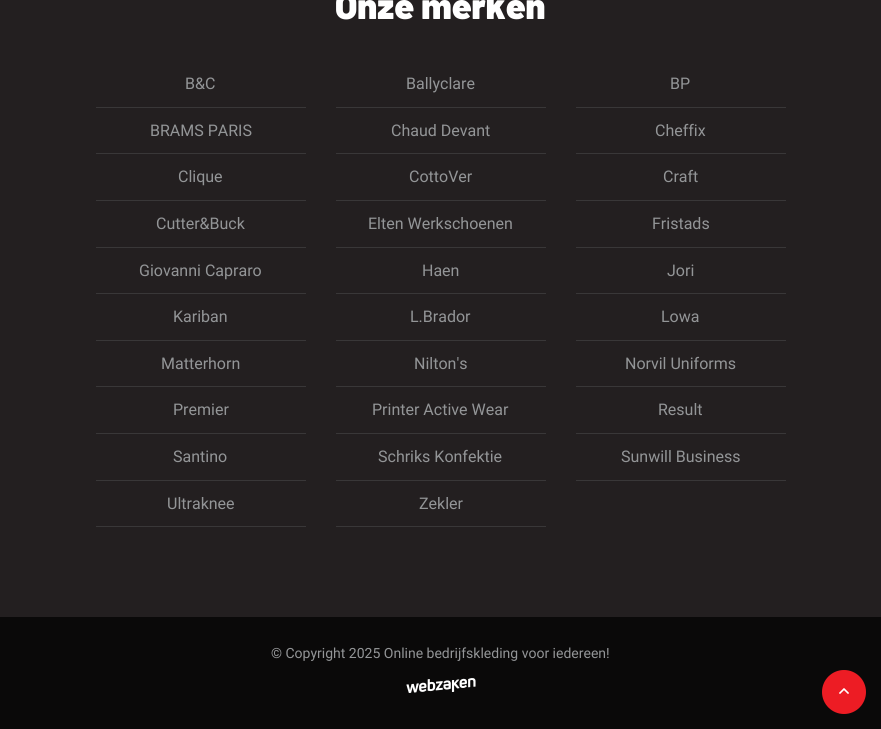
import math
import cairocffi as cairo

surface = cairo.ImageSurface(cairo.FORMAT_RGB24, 881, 729)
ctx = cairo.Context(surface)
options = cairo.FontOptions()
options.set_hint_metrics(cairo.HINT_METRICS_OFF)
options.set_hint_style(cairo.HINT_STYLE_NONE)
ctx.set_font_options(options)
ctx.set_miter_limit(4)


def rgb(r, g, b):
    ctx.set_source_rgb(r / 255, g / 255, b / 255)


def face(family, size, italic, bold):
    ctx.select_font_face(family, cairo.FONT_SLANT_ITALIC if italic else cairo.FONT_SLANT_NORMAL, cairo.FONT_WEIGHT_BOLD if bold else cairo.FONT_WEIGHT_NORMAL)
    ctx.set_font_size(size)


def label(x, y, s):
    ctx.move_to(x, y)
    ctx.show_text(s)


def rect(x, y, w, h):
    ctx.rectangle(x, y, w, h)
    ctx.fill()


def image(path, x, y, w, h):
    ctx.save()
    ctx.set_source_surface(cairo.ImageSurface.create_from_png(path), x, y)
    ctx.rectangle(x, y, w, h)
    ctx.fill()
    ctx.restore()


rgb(10, 9, 9)
ctx.paint()
rgb(35, 31, 32)
rect(0, 0, 881, 617)
face('Barlow Black', 36, 0, 0)
rgb(255, 255, 255)
label(335, 19, 'Onze merken')
rgb(57, 55, 56)
rect(96, 107, 210, 1)
face('Roboto', 16, 0, 0)
rgb(147, 149, 151)
label(185, 89, 'B&C')
rgb(57, 55, 56)
rect(336, 107, 210, 1)
rgb(147, 149, 151)
label(406, 89, 'Ballyclare')
rgb(57, 55, 56)
rect(576, 107, 210, 1)
rgb(147, 149, 151)
label(670, 89, 'BP')
rgb(57, 55, 56)
rect(96, 153, 210, 1)
rgb(147, 149, 151)
label(150, 136, 'BRAMS PARIS')
rgb(57, 55, 56)
rect(336, 153, 210, 1)
rgb(147, 149, 151)
label(391, 136, 'Chaud Devant')
rgb(57, 55, 56)
rect(576, 153, 210, 1)
rgb(147, 149, 151)
label(655, 136, 'Cheffix')
rgb(57, 55, 56)
rect(96, 200, 210, 1)
rgb(147, 149, 151)
label(178, 182, 'Clique')
rgb(57, 55, 56)
rect(336, 200, 210, 1)
rgb(147, 149, 151)
label(409, 182, 'CottoVer')
rgb(57, 55, 56)
rect(576, 200, 210, 1)
rgb(147, 149, 151)
label(663, 182, 'Craft')
rgb(57, 55, 56)
rect(96, 247, 210, 1)
rgb(147, 149, 151)
label(156, 229, 'Cutter&Buck')
rgb(57, 55, 56)
rect(336, 247, 210, 1)
rgb(147, 149, 151)
label(368, 229, 'Elten Werkschoenen')
rgb(57, 55, 56)
rect(576, 247, 210, 1)
rgb(147, 149, 151)
label(652, 229, 'Fristads')
rgb(57, 55, 56)
rect(96, 293, 210, 1)
rgb(147, 149, 151)
label(139, 276, 'Giovanni Capraro')
rgb(57, 55, 56)
rect(336, 293, 210, 1)
rgb(147, 149, 151)
label(422, 276, 'Haen')
rgb(57, 55, 56)
rect(576, 293, 210, 1)
rgb(147, 149, 151)
label(667, 276, 'Jori')
rgb(57, 55, 56)
rect(96, 340, 210, 1)
rgb(147, 149, 151)
label(173, 322, 'Kariban')
rgb(57, 55, 56)
rect(336, 340, 210, 1)
rgb(147, 149, 151)
label(410, 322, 'L.Brador')
rgb(57, 55, 56)
rect(576, 340, 210, 1)
rgb(147, 149, 151)
label(661, 322, 'Lowa')
rgb(57, 55, 56)
rect(96, 386, 210, 1)
rgb(147, 149, 151)
label(161, 369, 'Matterhorn')
rgb(57, 55, 56)
rect(336, 386, 210, 1)
rgb(147, 149, 151)
label(414, 369, 'Nilton\'s')
rgb(57, 55, 56)
rect(576, 386, 210, 1)
rgb(147, 149, 151)
label(625, 369, 'Norvil Uniforms')
rgb(57, 55, 56)
rect(96, 433, 210, 1)
rgb(147, 149, 151)
label(173, 415, 'Premier')
rgb(57, 55, 56)
rect(336, 433, 210, 1)
rgb(147, 149, 151)
label(372, 415, 'Printer Active Wear')
rgb(57, 55, 56)
rect(576, 433, 210, 1)
rgb(147, 149, 151)
label(658, 415, 'Result')
rgb(57, 55, 56)
rect(96, 480, 210, 1)
rgb(147, 149, 151)
label(173, 462, 'Santino')
rgb(57, 55, 56)
rect(336, 480, 210, 1)
rgb(147, 149, 151)
label(378, 462, 'Schriks Konfektie')
rgb(57, 55, 56)
rect(576, 480, 210, 1)
rgb(147, 149, 151)
label(621, 462, 'Sunwill Business')
rgb(57, 55, 56)
rect(96, 526, 210, 1)
rgb(147, 149, 151)
label(167, 509, 'Ultraknee')
rgb(57, 55, 56)
rect(336, 526, 210, 1)
rgb(147, 149, 151)
label(419, 509, 'Zekler')
face('Roboto', 14, 0, 0)
label(271, 658, '© Copyright 2025 Online bedrijfskleding voor iedereen!')
image('image0.png', 406, 678, 70, 15)
rgb(237, 28, 36)
ctx.arc(844, 692, 22, 0, 2 * math.pi)
ctx.fill()
image('image1.png', 839, 688, 10, 6)
surface.write_to_png('render.png')
